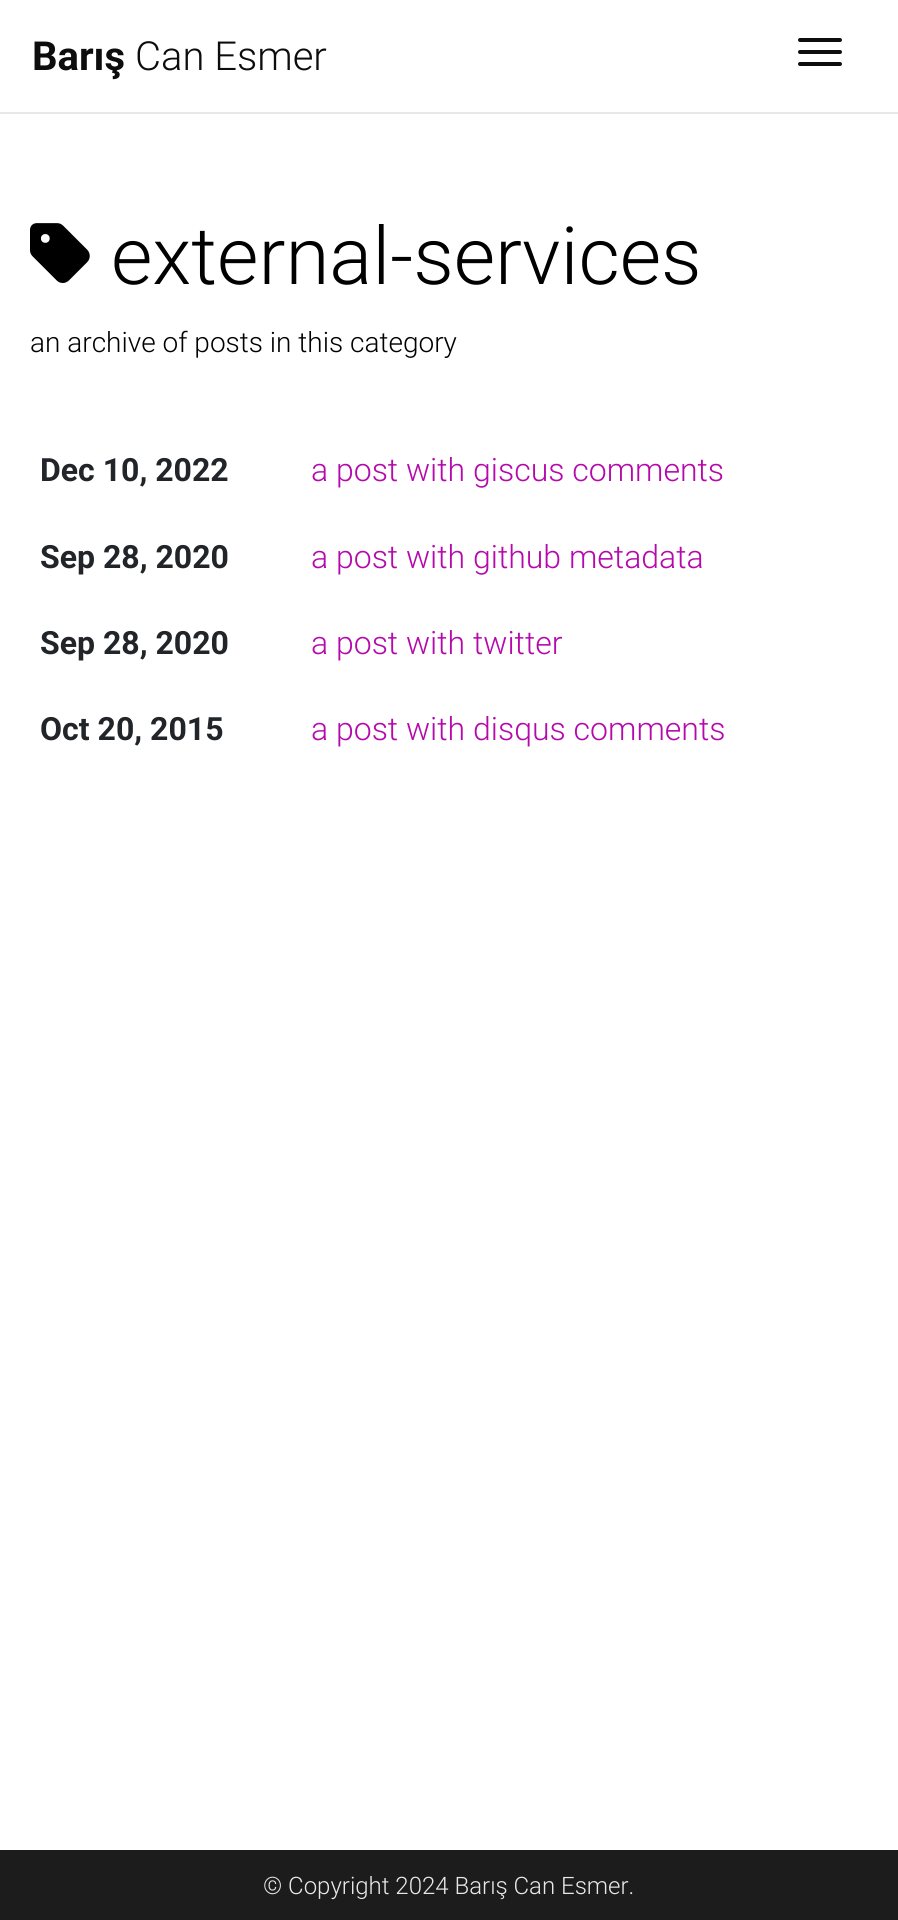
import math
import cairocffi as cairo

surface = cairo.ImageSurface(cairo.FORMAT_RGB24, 898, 1920)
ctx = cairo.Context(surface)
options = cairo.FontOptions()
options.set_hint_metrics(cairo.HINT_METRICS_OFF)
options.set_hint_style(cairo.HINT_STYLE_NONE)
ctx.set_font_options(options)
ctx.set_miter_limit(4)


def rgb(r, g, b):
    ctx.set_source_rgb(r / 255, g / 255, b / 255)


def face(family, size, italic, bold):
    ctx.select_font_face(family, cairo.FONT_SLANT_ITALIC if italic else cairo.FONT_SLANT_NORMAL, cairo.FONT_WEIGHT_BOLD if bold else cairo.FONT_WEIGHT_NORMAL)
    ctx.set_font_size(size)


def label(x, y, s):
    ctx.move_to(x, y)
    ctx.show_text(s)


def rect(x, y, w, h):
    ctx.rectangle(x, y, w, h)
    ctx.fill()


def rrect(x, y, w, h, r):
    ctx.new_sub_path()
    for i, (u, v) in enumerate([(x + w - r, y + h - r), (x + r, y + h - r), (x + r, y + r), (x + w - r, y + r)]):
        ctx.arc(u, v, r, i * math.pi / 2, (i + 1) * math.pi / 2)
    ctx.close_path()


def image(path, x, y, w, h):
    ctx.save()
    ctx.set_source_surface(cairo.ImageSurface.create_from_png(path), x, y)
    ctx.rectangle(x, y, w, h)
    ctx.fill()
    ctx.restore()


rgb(255, 255, 255)
ctx.paint()
rgb(231, 231, 231)
rect(0, 112, 898, 2)
face('Roboto', 40, 0, 1)
rgb(13, 13, 13)
label(32, 70, 'Barış')
face('Roboto Light', 40, 0, 0)
label(135, 70, 'Can Esmer')
rrect(798, 38, 44, 4, 2)
ctx.fill()
rrect(798, 50, 44, 4, 2)
ctx.fill()
rrect(798, 62, 44, 4, 2)
ctx.fill()
image('image0.png', 30, 223, 60, 60)
face('Roboto Light', 80, 0, 0)
rgb(0, 0, 0)
label(111, 284, 'external-services')
face('Roboto Light', 28, 0, 0)
label(30, 352, 'an archive of posts in this category')
face('Roboto', 32, 0, 1)
rgb(33, 37, 41)
label(40, 481, 'Dec 10, 2022')
face('Roboto Light', 32, 0, 0)
rgb(181, 9, 172)
label(311, 481, 'a post with giscus comments')
face('Roboto', 32, 0, 1)
rgb(33, 37, 41)
label(40, 568, 'Sep 28, 2020')
face('Roboto Light', 32, 0, 0)
rgb(181, 9, 172)
label(311, 568, 'a post with github metadata')
face('Roboto', 32, 0, 1)
rgb(33, 37, 41)
label(40, 654, 'Sep 28, 2020')
face('Roboto Light', 32, 0, 0)
rgb(181, 9, 172)
label(311, 654, 'a post with twitter')
face('Roboto', 32, 0, 1)
rgb(33, 37, 41)
label(40, 740, 'Oct 20, 2015')
face('Roboto Light', 32, 0, 0)
rgb(181, 9, 172)
label(311, 740, 'a post with disqus comments')
rgb(28, 28, 29)
rect(0, 1850, 898, 70)
face('Roboto Light', 24, 0, 0)
rgb(232, 232, 232)
label(263, 1894, '© Copyright 2024 Barış Can Esmer.')
surface.write_to_png('render.png')
